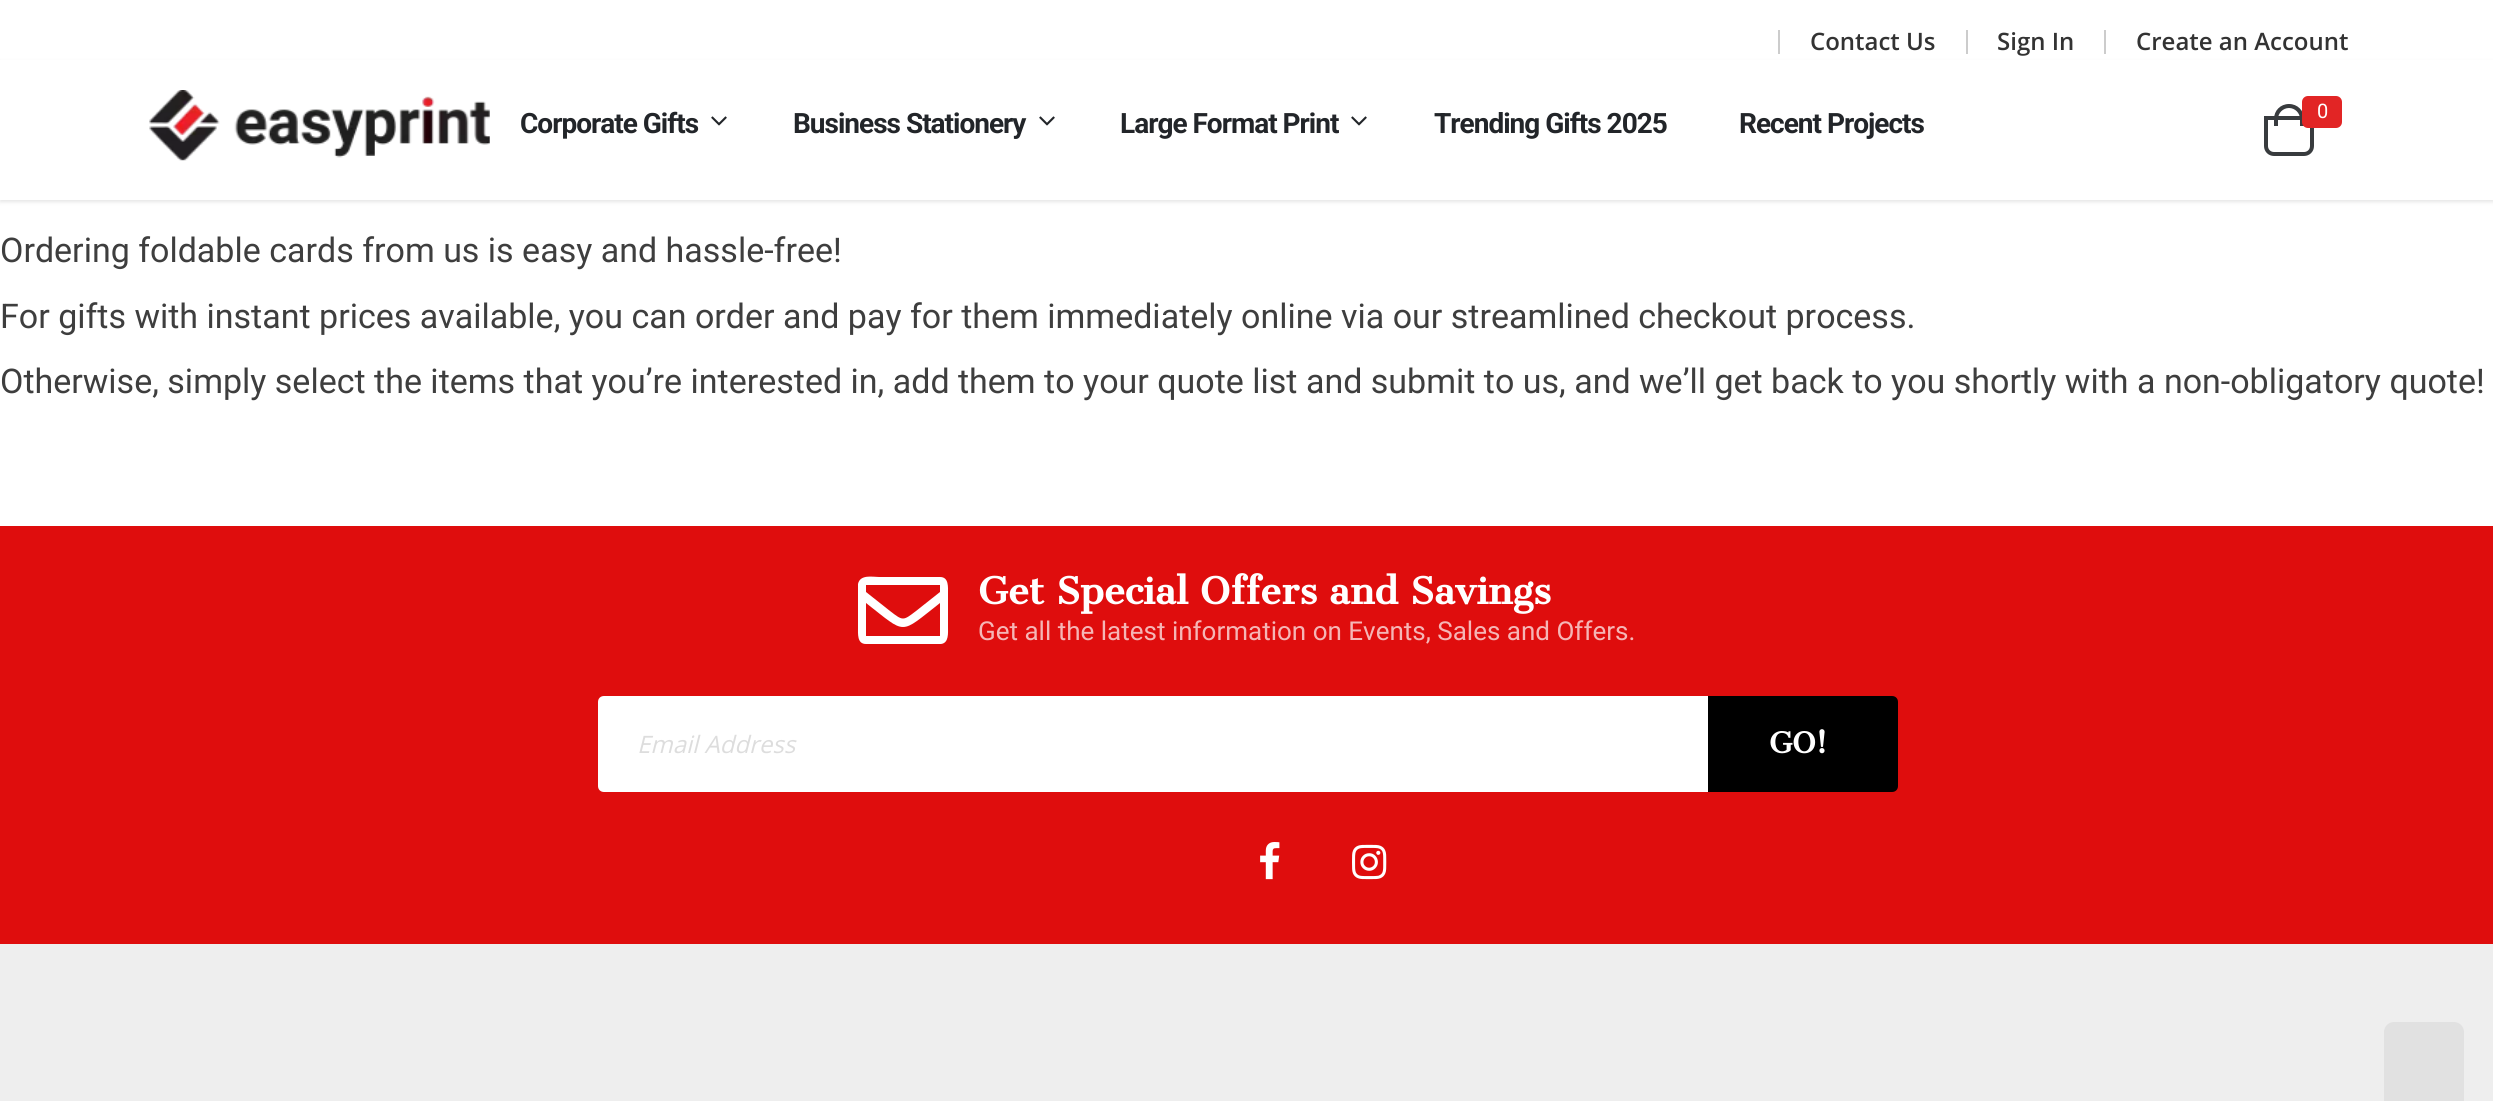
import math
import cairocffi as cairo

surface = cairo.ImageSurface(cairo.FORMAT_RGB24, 2493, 1101)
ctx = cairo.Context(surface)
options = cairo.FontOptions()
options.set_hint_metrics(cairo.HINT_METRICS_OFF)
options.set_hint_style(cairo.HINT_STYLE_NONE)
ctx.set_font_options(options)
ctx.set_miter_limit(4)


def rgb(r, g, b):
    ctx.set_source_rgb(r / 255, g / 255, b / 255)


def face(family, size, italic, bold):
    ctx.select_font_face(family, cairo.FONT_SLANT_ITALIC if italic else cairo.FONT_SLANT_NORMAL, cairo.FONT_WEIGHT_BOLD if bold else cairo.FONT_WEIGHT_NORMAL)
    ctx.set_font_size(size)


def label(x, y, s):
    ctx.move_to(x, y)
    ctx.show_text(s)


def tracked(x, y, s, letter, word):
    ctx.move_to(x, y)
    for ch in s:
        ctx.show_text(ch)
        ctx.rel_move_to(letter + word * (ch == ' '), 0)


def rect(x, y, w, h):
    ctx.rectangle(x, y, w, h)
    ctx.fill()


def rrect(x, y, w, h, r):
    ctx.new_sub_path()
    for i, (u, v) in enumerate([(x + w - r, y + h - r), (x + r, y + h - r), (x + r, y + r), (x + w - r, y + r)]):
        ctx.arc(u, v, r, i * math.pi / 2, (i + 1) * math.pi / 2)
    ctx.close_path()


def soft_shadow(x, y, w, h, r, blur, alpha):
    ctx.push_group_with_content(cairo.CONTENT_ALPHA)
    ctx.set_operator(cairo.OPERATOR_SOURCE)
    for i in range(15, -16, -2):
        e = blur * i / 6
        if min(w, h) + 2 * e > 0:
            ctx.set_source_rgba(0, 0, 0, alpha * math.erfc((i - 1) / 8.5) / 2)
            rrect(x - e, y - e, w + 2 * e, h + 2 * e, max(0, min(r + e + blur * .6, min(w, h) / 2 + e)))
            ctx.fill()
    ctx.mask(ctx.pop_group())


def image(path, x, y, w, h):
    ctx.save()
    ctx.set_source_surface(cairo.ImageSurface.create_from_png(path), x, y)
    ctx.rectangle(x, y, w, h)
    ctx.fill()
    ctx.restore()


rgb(255, 255, 255)
ctx.paint()
rgb(204, 204, 204)
rect(1778, 30, 2, 24)
face('Open Sans SemiBold', 24, 0, 0)
rgb(51, 51, 51)
label(1810, 50, 'Contact Us')
rgb(204, 204, 204)
rect(1966, 30, 2, 24)
rgb(51, 51, 51)
label(1997, 50, 'Sign In')
rgb(204, 204, 204)
rect(2104, 30, 2, 24)
rgb(51, 51, 51)
label(2136, 50, 'Create an Account')
rgb(0, 0, 0)
soft_shadow(0, 62, 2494, 140, 0, 2, 0.1)
rgb(255, 255, 255)
rect(0, 60, 2493, 140)
image('image0.png', 149, 90, 341, 71)
face('Roboto', 28, 0, 1)
rgb(34, 37, 41)
tracked(520, 133, 'Corporate Gifts', -1, 0)
image('image1.png', 711, 116, 16, 10)
tracked(793, 133, 'Business Stationery', -1, 0)
image('image1.png', 1039, 116, 16, 10)
tracked(1120, 133, 'Large Format Print', -1, 0)
image('image1.png', 1351, 116, 16, 10)
tracked(1434, 133, 'Trending Gifts 2025', -1, 0)
tracked(1739, 133, 'Recent Projects', -1, 0)
ctx.new_path()
ctx.move_to(2266, 118)
ctx.line_to(2312, 118)
ctx.line_to(2312, 146)
ctx.curve_to(2312, 150.5, 2308.5, 154, 2304, 154)
ctx.line_to(2274, 154)
ctx.curve_to(2269.5, 154, 2266, 150.5, 2266, 146)
ctx.close_path()
rgb(56, 59, 62)
ctx.set_line_width(4)
ctx.stroke()
ctx.set_fill_rule(cairo.FILL_RULE_EVEN_ODD)
ctx.new_path()
ctx.move_to(2289, 104)
ctx.curve_to(2297.5, 104, 2304, 110.5, 2304, 119)
ctx.line_to(2304, 126)
ctx.line_to(2274, 126)
ctx.line_to(2274, 119)
ctx.curve_to(2274, 110.5, 2280.5, 104, 2289, 104)
ctx.close_path()
ctx.move_to(2289, 108)
ctx.curve_to(2295, 108, 2300, 113, 2300, 119)
ctx.line_to(2300, 126)
ctx.line_to(2278, 126)
ctx.line_to(2278, 119)
ctx.curve_to(2278, 113, 2283, 108, 2289, 108)
ctx.close_path()
ctx.fill()
rgb(226, 37, 37)
rrect(2302, 96, 40, 32, 6)
ctx.fill()
face('Roboto', 20, 0, 0)
rgb(255, 255, 255)
label(2317, 118, '0')
face('Roboto', 34, 0, 0)
rgb(62, 62, 62)
label(0, 262, 'Ordering foldable cards from us is easy and hassle-free!')
label(0, 328, 'For gifts with instant prices available, you can order and pay for them immediately online via our streamlined checkout process.')
label(0, 393, 'Otherwise, simply select the items that you’re interested in, add them to your quote list and submit to us, and we’ll get back to you shortly with a non-obligatory quote!')
rgb(223, 13, 13)
rect(0, 526, 2493, 418)
rgb(255, 255, 255)
ctx.set_fill_rule(cairo.FILL_RULE_WINDING)
ctx.new_path()
ctx.move_to(940, 577)
ctx.curve_to(949, 577, 948, 587, 948, 594)
ctx.line_to(948, 627)
ctx.curve_to(948, 633, 949, 643, 941, 644)
ctx.line_to(866, 644)
ctx.curve_to(857, 644, 858, 634, 858, 627)
ctx.line_to(858, 584)
ctx.curve_to(860, 574, 873, 577, 879, 577)
ctx.close_path()
ctx.move_to(940, 585)
ctx.line_to(866, 585)
ctx.line_to(866, 592)
ctx.line_to(890, 611)
ctx.curve_to(903, 621, 903, 621, 916, 611)
ctx.line_to(940, 592)
ctx.close_path()
ctx.move_to(866, 636)
ctx.line_to(940, 636)
ctx.line_to(940, 603)
ctx.curve_to(899, 635, 907, 635, 866, 603)
ctx.close_path()
ctx.fill()
face('Cantata One', 36, 0, 1)
label(978, 604, 'Get Special Offers and Savings')
face('Roboto', 26, 0, 0)
rgb(245, 182, 182)
label(978, 640, 'Get all the latest information on Events, Sales and Offers.')
rgb(255, 255, 255)
ctx.new_path()
ctx.move_to(604, 696)
ctx.line_to(1708, 696)
ctx.line_to(1708, 792)
ctx.line_to(604, 792)
ctx.curve_to(600.5, 792, 598, 789.5, 598, 786)
ctx.line_to(598, 702)
ctx.curve_to(598, 698.5, 600.5, 696, 604, 696)
ctx.close_path()
ctx.fill()
face('Open Sans', 24, 1, 0)
rgb(221, 221, 221)
label(637, 753, 'Email Address')
rgb(0, 0, 0)
ctx.new_path()
ctx.move_to(1708, 696)
ctx.line_to(1892, 696)
ctx.curve_to(1895.5, 696, 1898, 698.5, 1898, 702)
ctx.line_to(1898, 786)
ctx.curve_to(1898, 789.5, 1895.5, 792, 1892, 792)
ctx.line_to(1708, 792)
ctx.close_path()
ctx.fill()
face('Cantata One', 28, 0, 1)
rgb(255, 255, 255)
label(1769, 753, 'GO!')
image('image2.png', 1260, 842, 20, 38)
image('image3.png', 1352, 844, 35, 36)
rgb(238, 238, 238)
rect(0, 944, 2493, 157)
rgb(225, 225, 225)
ctx.new_path()
ctx.move_to(2394, 1022)
ctx.line_to(2454, 1022)
ctx.curve_to(2459.5, 1022, 2464, 1026.5, 2464, 1032)
ctx.line_to(2464, 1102)
ctx.line_to(2384, 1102)
ctx.line_to(2384, 1032)
ctx.curve_to(2384, 1026.5, 2388.5, 1022, 2394, 1022)
ctx.close_path()
ctx.fill()
surface.write_to_png('render.png')
